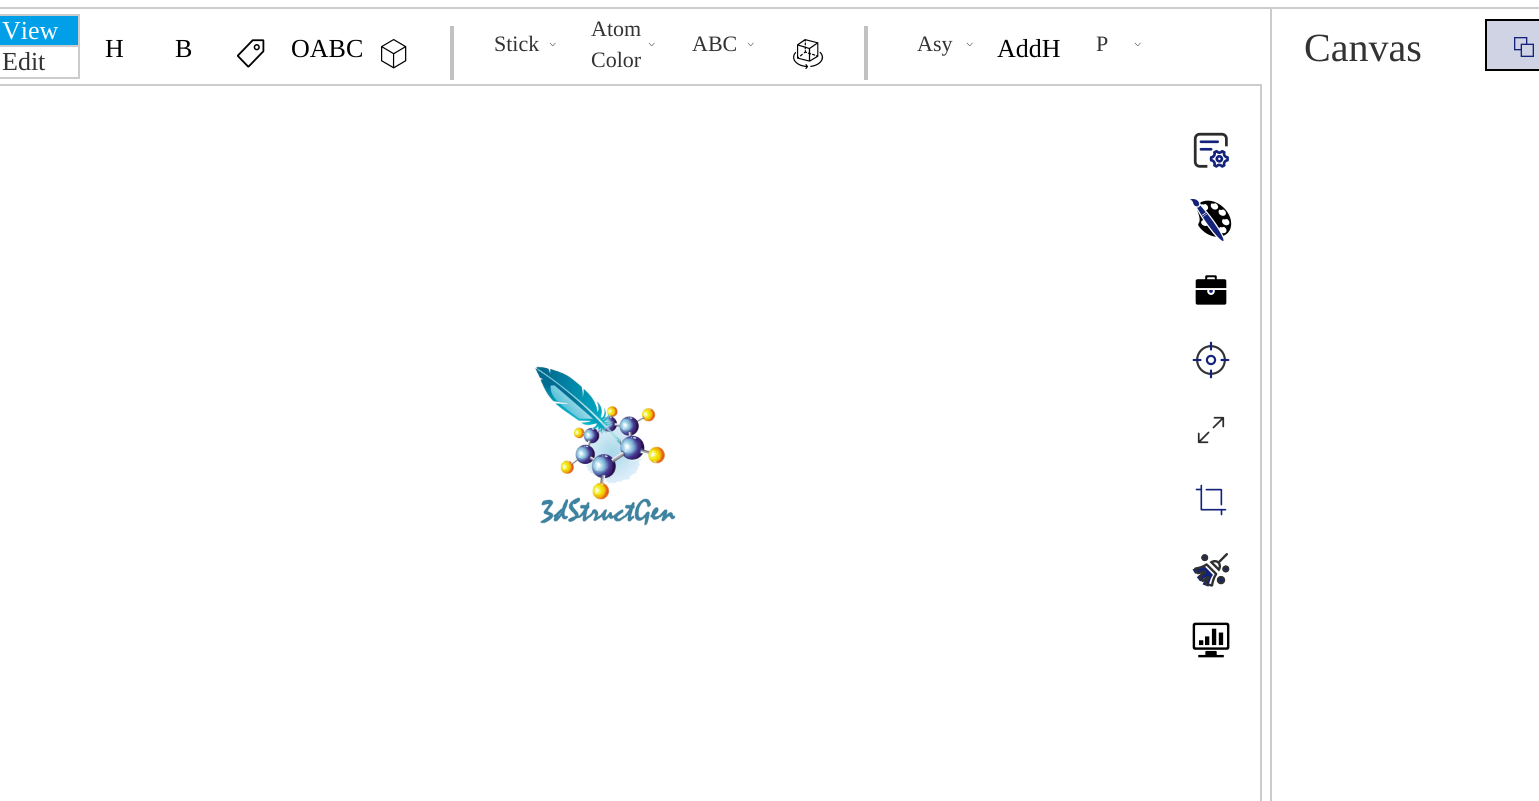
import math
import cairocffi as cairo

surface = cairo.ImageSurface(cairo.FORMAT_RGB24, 1539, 801)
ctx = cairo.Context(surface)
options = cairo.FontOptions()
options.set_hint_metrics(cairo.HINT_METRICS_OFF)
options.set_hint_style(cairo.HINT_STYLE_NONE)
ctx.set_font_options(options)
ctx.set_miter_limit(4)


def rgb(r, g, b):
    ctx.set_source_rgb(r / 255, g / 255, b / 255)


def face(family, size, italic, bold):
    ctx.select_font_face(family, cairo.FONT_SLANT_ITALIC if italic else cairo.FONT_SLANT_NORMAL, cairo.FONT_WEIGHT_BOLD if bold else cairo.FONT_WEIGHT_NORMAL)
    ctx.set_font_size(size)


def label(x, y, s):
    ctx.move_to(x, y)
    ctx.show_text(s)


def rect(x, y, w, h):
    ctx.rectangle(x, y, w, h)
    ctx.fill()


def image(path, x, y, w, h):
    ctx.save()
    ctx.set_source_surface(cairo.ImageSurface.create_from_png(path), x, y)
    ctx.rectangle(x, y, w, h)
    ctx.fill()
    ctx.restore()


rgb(255, 255, 255)
ctx.paint()
rgb(204, 204, 204)
rect(0, 7, 1270, 2)
ctx.rectangle(-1, 15, 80, 63)
ctx.stroke()
rgb(0, 159, 231)
rect(0, 16, 78, 29)
rgb(204, 204, 204)
rect(0, 45, 78, 2)
face('Liberation Serif', 26, 0, 0)
rgb(255, 255, 255)
label(2, 39, 'View')
rgb(51, 51, 51)
label(2, 70, 'Edit')
rgb(0, 0, 0)
label(105, 57, 'H')
label(175, 57, 'B')
image('image0.png', 237, 39, 28, 29)
label(291, 57, 'OABC')
image('image1.png', 381, 38, 26, 31)
rgb(193, 193, 193)
rect(450, 26, 4, 54)
face('Liberation Serif', 22, 0, 0)
rgb(51, 51, 51)
label(494, 51, 'Stick')
image('image2.png', 549, 42, 7, 4)
label(591, 36, 'Atom')
label(591, 67, 'Color')
image('image2.png', 648, 42, 7, 4)
label(692, 51, 'ABC')
image('image2.png', 747, 42, 7, 4)
image('image3.png', 793, 39, 31, 30)
rgb(193, 193, 193)
rect(864, 26, 4, 54)
rgb(51, 51, 51)
label(917, 51, 'Asy')
image('image2.png', 966, 42, 7, 4)
face('Liberation Serif', 26, 0, 0)
rgb(0, 0, 0)
label(997, 57, 'AddH')
face('Liberation Serif', 22, 0, 0)
rgb(51, 51, 51)
label(1096, 51, 'P')
image('image2.png', 1134, 42, 7, 4)
ctx.rectangle(-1, 85, 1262, 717)
rgb(204, 204, 204)
ctx.stroke()
image('image4.png', 535, 366, 141, 160)
image('image5.png', 1193, 132, 36, 36)
image('image6.png', 1190, 199, 42, 42)
image('image7.png', 1195, 275, 32, 30)
image('image8.png', 1192, 341, 38, 38)
image('image9.png', 1197, 416, 28, 28)
image('image10.png', 1195, 484, 32, 32)
image('image11.png', 1192, 553, 38, 34)
image('image12.png', 1192, 622, 38, 36)
ctx.rectangle(1271, 8, 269, 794)
ctx.stroke()
face('Liberation Serif', 40, 0, 0)
rgb(51, 51, 51)
label(1304, 61, 'Canvas')
rgb(208, 211, 228)
ctx.rectangle(1486, 20, 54, 50)
ctx.fill_preserve()
rgb(0, 0, 0)
ctx.stroke()
image('image13.png', 1514, 37, 20, 20)
surface.write_to_png('render.png')
